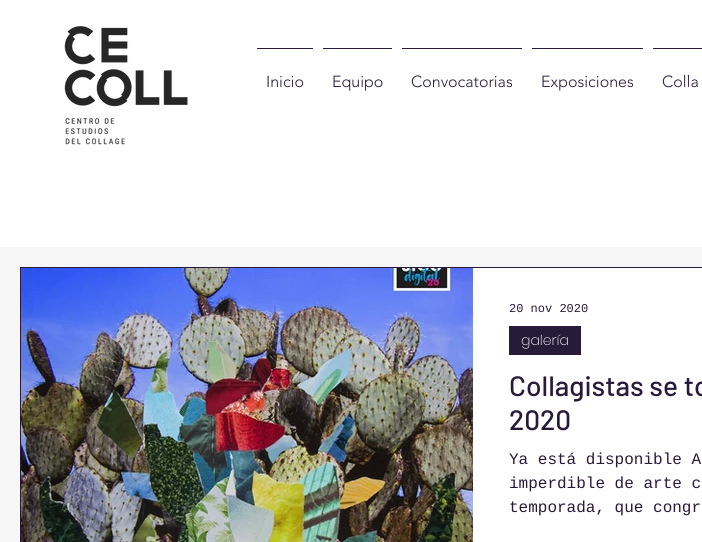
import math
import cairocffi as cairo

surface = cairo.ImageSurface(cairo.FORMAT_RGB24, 702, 542)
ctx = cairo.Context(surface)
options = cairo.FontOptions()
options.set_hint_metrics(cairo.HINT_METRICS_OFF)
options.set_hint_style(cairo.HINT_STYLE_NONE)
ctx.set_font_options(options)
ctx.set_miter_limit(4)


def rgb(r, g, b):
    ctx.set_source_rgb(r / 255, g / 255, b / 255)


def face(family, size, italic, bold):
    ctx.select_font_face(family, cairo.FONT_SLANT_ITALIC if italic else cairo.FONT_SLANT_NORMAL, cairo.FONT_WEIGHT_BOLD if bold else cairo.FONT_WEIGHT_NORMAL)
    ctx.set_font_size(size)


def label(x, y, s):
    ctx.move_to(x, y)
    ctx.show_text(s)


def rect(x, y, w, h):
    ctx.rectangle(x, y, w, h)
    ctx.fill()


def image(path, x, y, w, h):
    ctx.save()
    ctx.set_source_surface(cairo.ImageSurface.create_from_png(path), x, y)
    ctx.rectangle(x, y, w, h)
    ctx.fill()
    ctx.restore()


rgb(255, 255, 255)
ctx.paint()
image('image0.png', 64, 26, 124, 119)
rgb(40, 26, 57)
rect(257, 48, 56, 1)
face('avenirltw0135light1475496 Light', 16, 0, 0)
label(266, 87, 'Inicio')
rect(323, 48, 69, 1)
label(332, 87, 'Equipo')
rect(402, 48, 120, 1)
label(411, 87, 'Convocatorias')
rect(532, 48, 111, 1)
label(541, 87, 'Exposiciones')
rect(653, 48, 49, 1)
label(662, 87, 'Colla')
rgb(246, 246, 246)
rect(0, 247, 702, 295)
ctx.rectangle(20.5, 267.5, 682, 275)
rgb(40, 26, 57)
ctx.set_line_width(1)
ctx.stroke()
image('image1.png', 21, 268, 452, 274)
rgb(255, 255, 255)
rect(473, 268, 229, 274)
face('Liberation Mono', 12, 0, 0)
rgb(40, 26, 57)
label(509, 312, '20 nov 2020')
rect(509, 326, 72, 29)
face('Poppins ExtraLight', 14, 0, 0)
rgb(255, 255, 255)
label(521, 345, 'galería')
face('Barlow Medium', 28, 0, 0)
rgb(40, 26, 57)
label(509, 396, 'Collagistas se to')
label(509, 430, '2020')
face('Liberation Mono', 16, 0, 0)
label(509, 464, 'Ya está disponible A')
label(509, 488, 'imperdible de arte c')
label(509, 512, 'temporada, que congr')
surface.write_to_png('render.png')
